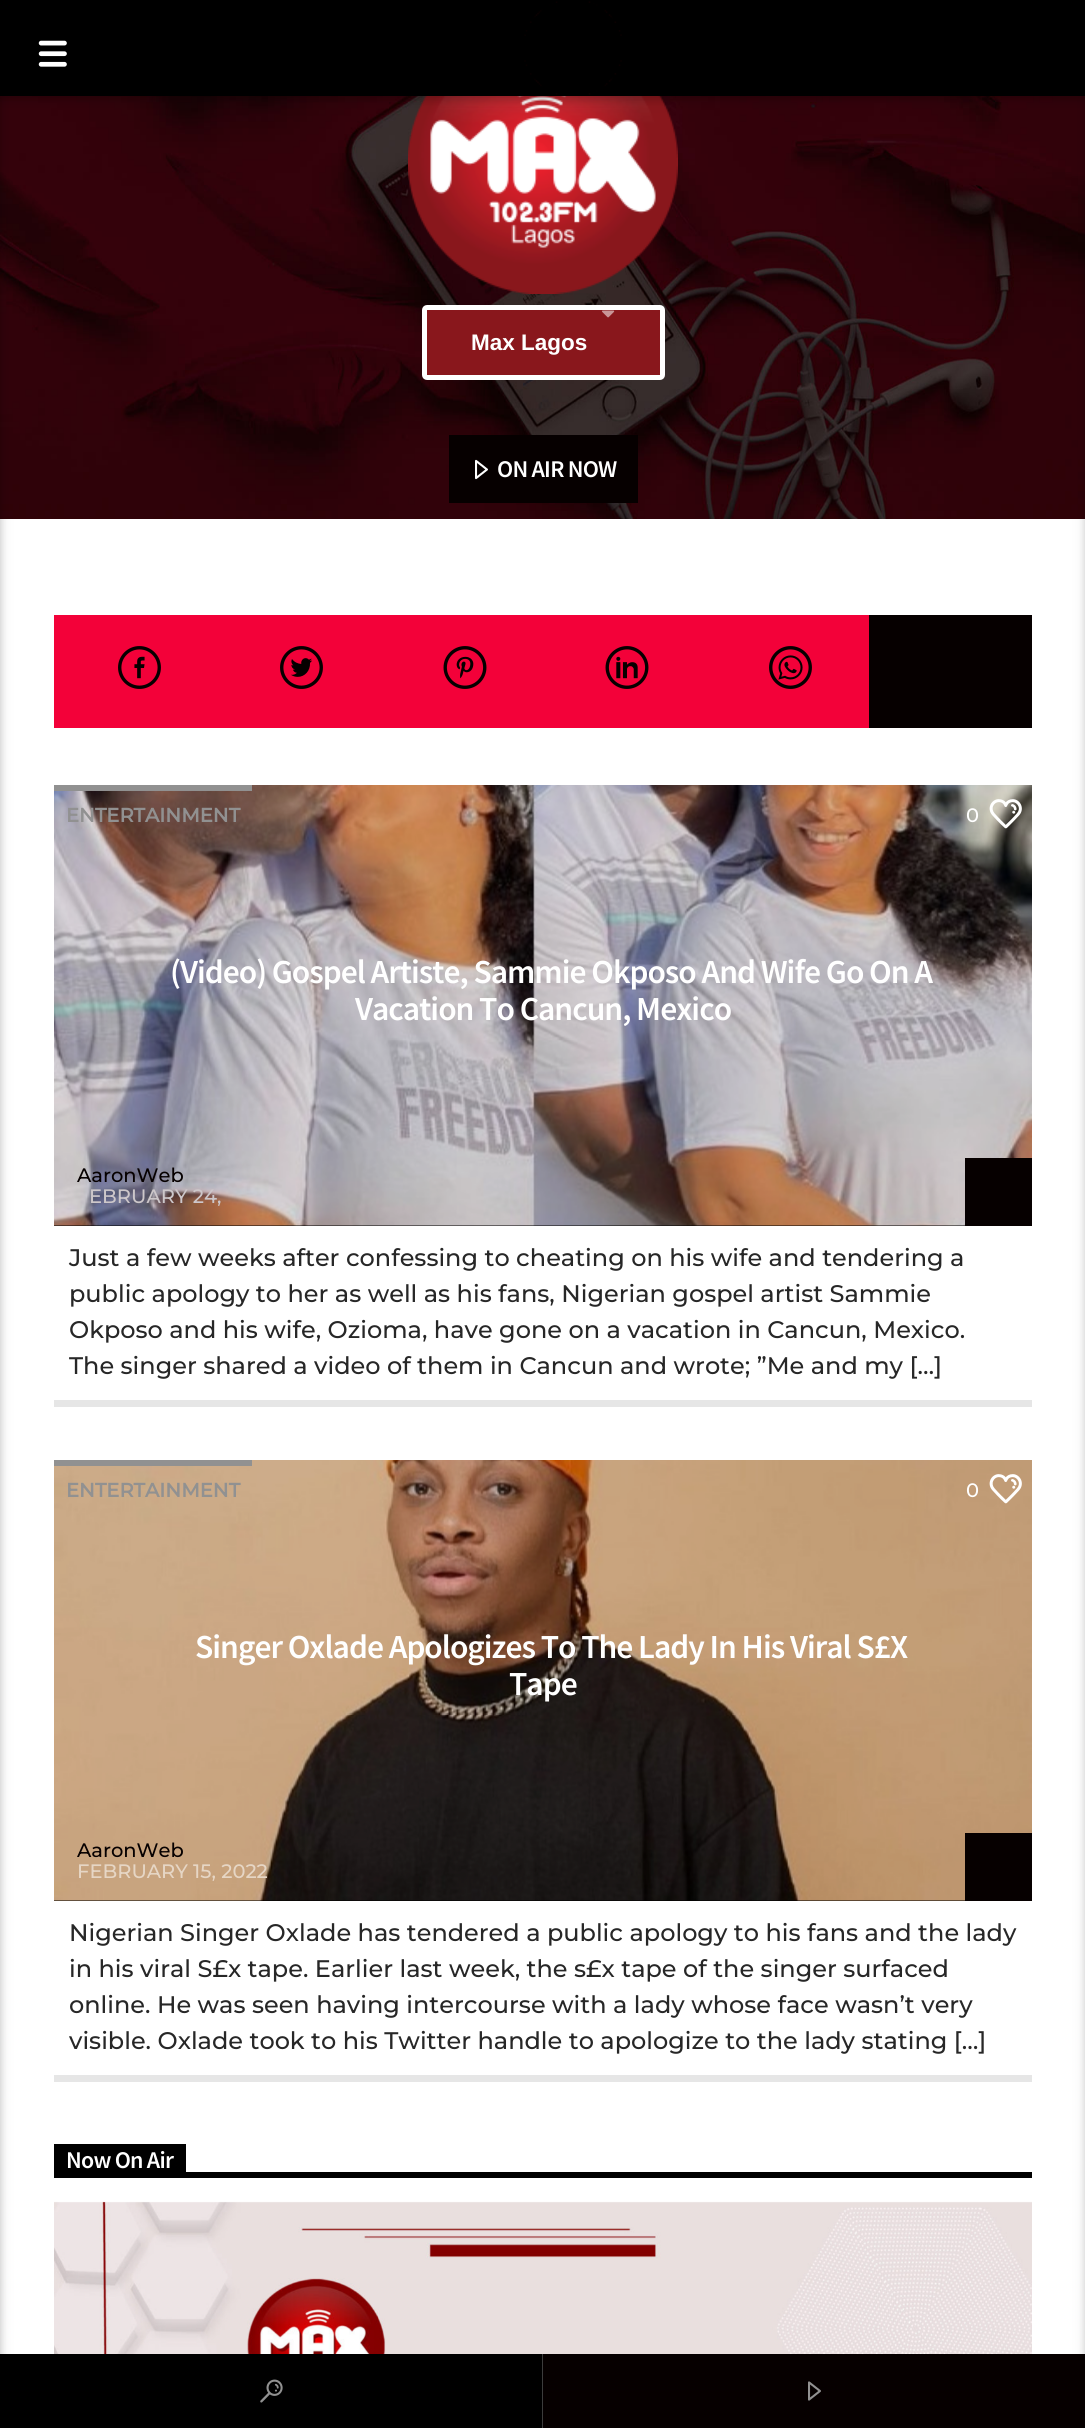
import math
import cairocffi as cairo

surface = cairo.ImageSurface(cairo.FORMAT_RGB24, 1085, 2428)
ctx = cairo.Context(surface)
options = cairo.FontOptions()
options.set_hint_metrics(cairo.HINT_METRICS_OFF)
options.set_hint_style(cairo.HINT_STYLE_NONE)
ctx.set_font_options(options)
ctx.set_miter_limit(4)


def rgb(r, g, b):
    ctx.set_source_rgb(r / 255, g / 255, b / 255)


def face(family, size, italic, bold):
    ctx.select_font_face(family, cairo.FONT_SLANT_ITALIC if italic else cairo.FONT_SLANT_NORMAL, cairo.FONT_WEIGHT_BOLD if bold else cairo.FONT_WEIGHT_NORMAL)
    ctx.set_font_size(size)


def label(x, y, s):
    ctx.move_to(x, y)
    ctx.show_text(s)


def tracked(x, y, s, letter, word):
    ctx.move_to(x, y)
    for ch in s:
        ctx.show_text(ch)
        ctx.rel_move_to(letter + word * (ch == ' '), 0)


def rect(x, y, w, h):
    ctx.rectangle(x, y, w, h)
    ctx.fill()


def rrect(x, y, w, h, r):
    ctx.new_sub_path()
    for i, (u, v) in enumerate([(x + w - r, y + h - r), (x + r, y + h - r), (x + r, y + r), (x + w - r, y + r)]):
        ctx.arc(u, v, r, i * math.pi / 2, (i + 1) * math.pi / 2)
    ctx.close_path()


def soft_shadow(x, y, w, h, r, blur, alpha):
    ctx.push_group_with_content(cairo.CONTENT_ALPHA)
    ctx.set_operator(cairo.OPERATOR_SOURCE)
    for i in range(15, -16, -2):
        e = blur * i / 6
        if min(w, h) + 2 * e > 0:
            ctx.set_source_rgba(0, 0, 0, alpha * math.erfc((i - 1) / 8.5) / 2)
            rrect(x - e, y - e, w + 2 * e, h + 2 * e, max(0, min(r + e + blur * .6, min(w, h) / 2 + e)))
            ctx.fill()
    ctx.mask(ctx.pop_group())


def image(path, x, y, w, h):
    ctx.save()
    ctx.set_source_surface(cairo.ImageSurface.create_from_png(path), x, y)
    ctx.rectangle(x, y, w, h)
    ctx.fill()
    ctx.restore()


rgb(255, 255, 255)
ctx.paint()
image('image2.png', 0, 96, 1085, 423)
image('image3.png', 408, 96, 270, 198)
rgb(0, 0, 0)
soft_shadow(0, 3, 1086, 96, 0, 7.5, 0.12)
soft_shadow(0, 3, 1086, 96, 0, 4, 0.16)
rgb(0, 0, 0)
rect(0, 0, 1085, 96)
image('image0.png', 38, 40, 29, 27)
image('image1.png', 524, 1, 98, 94)
rect(0, 2354, 542, 74)
rgb(0, 0, 0)
soft_shadow(-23, 3, 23, 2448, 0, 7.5, 0.12)
soft_shadow(-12, 3, 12, 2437, 0, 4, 0.16)
rgb(137, 23, 28)
rrect(424.5, 307.5, 238, 70, 2.5)
ctx.fill_preserve()
rgb(255, 255, 255)
ctx.set_line_width(5)
ctx.stroke()
image('image4.png', 602, 310, 13, 8)
face('Liberation Sans', 22.5, 0, 1)
label(471, 350, 'Max Lagos')
rgb(6, 0, 0)
rect(449, 435, 189, 68)
image('image5.png', 475, 459, 13, 21)
face('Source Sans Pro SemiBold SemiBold', 24, 0, 0)
rgb(255, 255, 255)
tracked(497, 477, 'ON AIR NOW', -0.75, 0)
rgb(6, 0, 0)
rect(543, 2354, 542, 74)
rgb(0, 0, 0)
soft_shadow(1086, 3, 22, 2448, 0, 7.5, 0.12)
soft_shadow(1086, 3, 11, 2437, 0, 4, 0.16)
rgb(243, 1, 57)
rect(54, 615, 815, 113)
image('image6.png', 118, 646, 43, 43)
image('image7.png', 280, 646, 43, 43)
image('image8.png', 443, 646, 44, 43)
image('image9.png', 605, 646, 44, 43)
image('image10.png', 769, 646, 43, 43)
rgb(6, 0, 0)
rect(869, 615, 163, 113)
rgb(0, 0, 0)
rect(54, 785, 978, 441)
image('image11.png', 54, 785, 978, 441)
rgb(145, 145, 145)
rect(54, 785, 198, 6)
face('Montserrat', 19.5, 0, 1)
label(66, 822, 'ENTERTAINMENT')
face('Montserrat Thin', 19.5, 0, 0)
rgb(255, 255, 255)
label(966, 822, '0')
image('image12.png', 989, 799, 33, 30)
face('Source Sans Pro SemiBold SemiBold', 33.6, 0, 0)
tracked(170, 983, '(Video) Gospel Artiste, Sammie Okposo And Wife Go On A', -1, 0)
tracked(355, 1020, 'Vacation To Cancun, Mexico', -1, 0)
face('Montserrat Thin', 19.5, 0, 0)
rgb(6, 0, 0)
label(77, 1182, 'AaronWeb')
rgb(205, 199, 202)
label(89, 1203, 'EBRUARY 24,')
rgb(6, 0, 0)
rect(965, 1158, 67, 68)
rgb(230, 230, 230)
rect(54, 1400, 978, 7)
face('Montserrat Thin', 24, 0, 0)
rgb(39, 39, 39)
label(69, 1266, 'Just a few weeks after confessing to cheating on his wife and tendering a')
label(69, 1302, 'public apology to her as well as his fans, Nigerian gospel artist Sammie')
label(69, 1338, 'Okposo and his wife, Ozioma, have gone on a vacation in Cancun, Mexico.')
label(69, 1374, 'The singer shared a video of them in Cancun and wrote; ”Me and my […]')
rgb(0, 0, 0)
rect(54, 1460, 978, 441)
image('image13.png', 54, 1460, 978, 441)
rgb(145, 145, 145)
rect(54, 1460, 198, 6)
face('Montserrat', 19.5, 0, 1)
label(66, 1497, 'ENTERTAINMENT')
face('Montserrat Thin', 19.5, 0, 0)
rgb(255, 255, 255)
label(966, 1497, '0')
image('image14.png', 989, 1474, 33, 30)
face('Source Sans Pro SemiBold SemiBold', 33.6, 0, 0)
tracked(195, 1658, 'Singer Oxlade Apologizes To The Lady In His Viral S£X', -1, 0)
tracked(509, 1695, 'Tape', -1, 0)
face('Montserrat Thin', 19.5, 0, 0)
rgb(6, 0, 0)
label(77, 1857, 'AaronWeb')
rgb(230, 214, 197)
label(77, 1878, 'FEBRUARY 15, 2022')
rgb(6, 0, 0)
rect(965, 1833, 67, 68)
rgb(230, 230, 230)
rect(54, 2075, 978, 7)
face('Montserrat Thin', 24, 0, 0)
rgb(39, 39, 39)
label(69, 1941, 'Nigerian Singer Oxlade has tendered a public apology to his fans and the lady')
label(69, 1977, 'in his viral S£x tape. Earlier last week, the s£x tape of the singer surfaced')
label(69, 2013, 'online. He was seen having intercourse with a lady whose face wasn’t very')
label(69, 2049, 'visible. Oxlade took to his Twitter handle to apologize to the lady stating […]')
rgb(0, 0, 0)
rect(54, 2172, 978, 6)
rect(54, 2144, 132, 28)
face('Source Sans Pro SemiBold SemiBold', 24, 0, 0)
rgb(255, 255, 255)
tracked(66, 2168, 'Now On Air', -0.75, 0)
image('image15.png', 54, 2201, 978, 153)
rgb(60, 60, 60)
rect(542, 2354, 1, 74)
image('image16.png', 260, 2379, 23, 24)
image('image17.png', 808, 2381, 13, 20)
surface.write_to_png('render.png')
